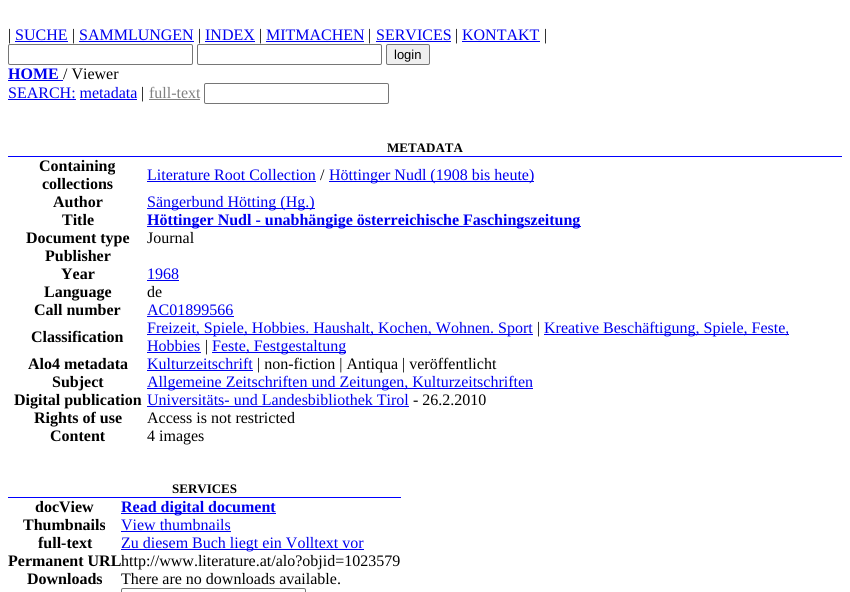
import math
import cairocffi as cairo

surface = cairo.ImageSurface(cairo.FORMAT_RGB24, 850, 592)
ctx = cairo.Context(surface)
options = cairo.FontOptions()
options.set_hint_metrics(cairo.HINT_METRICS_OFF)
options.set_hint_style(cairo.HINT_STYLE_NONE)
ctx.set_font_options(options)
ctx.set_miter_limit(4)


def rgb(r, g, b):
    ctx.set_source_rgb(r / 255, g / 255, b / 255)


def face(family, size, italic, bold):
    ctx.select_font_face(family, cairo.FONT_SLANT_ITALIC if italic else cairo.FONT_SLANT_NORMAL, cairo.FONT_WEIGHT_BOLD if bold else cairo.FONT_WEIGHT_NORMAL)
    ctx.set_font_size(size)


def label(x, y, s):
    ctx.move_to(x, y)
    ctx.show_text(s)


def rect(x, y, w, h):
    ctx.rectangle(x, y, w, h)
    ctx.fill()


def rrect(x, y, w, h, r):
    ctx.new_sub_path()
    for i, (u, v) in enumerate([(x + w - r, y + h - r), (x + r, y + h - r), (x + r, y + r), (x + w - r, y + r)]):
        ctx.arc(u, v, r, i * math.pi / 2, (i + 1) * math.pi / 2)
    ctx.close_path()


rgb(255, 255, 255)
ctx.paint()
face('Liberation Serif', 16, 0, 0)
rgb(0, 0, 0)
label(8, 40, '|')
rgb(0, 0, 238)
label(15, 40, 'SUCHE')
rect(15, 41, 53, 1)
rgb(0, 0, 0)
label(72, 40, '|')
rgb(0, 0, 238)
label(79, 40, 'SAMMLUNGEN')
rect(79, 41, 115, 1)
rgb(0, 0, 0)
label(198, 40, '|')
rgb(0, 0, 238)
label(205, 40, 'INDEX')
rect(205, 41, 50, 1)
rgb(0, 0, 0)
label(259, 40, '|')
rgb(0, 0, 238)
label(266, 40, 'MITMACHEN')
rect(266, 41, 98, 1)
rgb(0, 0, 0)
label(368, 40, '|')
rgb(0, 0, 238)
label(376, 40, 'SERVICES')
rect(376, 41, 75, 1)
rgb(0, 0, 0)
label(455, 40, '|')
rgb(0, 0, 238)
label(462, 40, 'KONTAKT')
rect(462, 41, 78, 1)
rgb(0, 0, 0)
label(544, 40, '|')
rrect(8.5, 44.5, 184, 20, 1.5)
rgb(118, 118, 118)
ctx.set_line_width(1)
ctx.stroke()
rrect(197.5, 44.5, 184, 20, 1.5)
ctx.stroke()
rgb(239, 239, 239)
rrect(386.5, 44.5, 43, 20, 1.5)
ctx.fill_preserve()
rgb(118, 118, 118)
ctx.stroke()
face('Liberation Sans', 13, 0, 0)
rgb(0, 0, 0)
label(394, 59, 'login')
face('Liberation Serif', 16, 0, 1)
rgb(0, 0, 238)
label(8, 79, 'HOME')
rect(8, 80, 55, 1)
face('Liberation Serif', 16, 0, 0)
rgb(0, 0, 0)
label(63, 79, '/ Viewer')
rgb(0, 0, 238)
label(8, 98, 'SEARCH: metadata')
rect(8, 99, 68, 1)
rgb(0, 0, 0)
label(141, 98, '|')
rgb(128, 128, 128)
label(149, 98, 'full-text')
rect(149, 99, 51, 1)
rrect(204.5, 83.5, 184, 20, 1.5)
rgb(118, 118, 118)
ctx.stroke()
rgb(0, 0, 238)
rect(80, 99, 57, 1)
rgb(0, 0, 255)
rect(8, 156, 834, 1)
face('Liberation Serif', 13, 0, 1)
rgb(0, 0, 0)
label(387, 152, 'METADATA')
face('Liberation Serif', 16, 0, 1)
label(39, 171, 'Containing')
label(42, 189, 'collections')
face('Liberation Serif', 16, 0, 0)
rgb(0, 0, 238)
label(147, 180, 'Literature Root Collection')
rect(147, 181, 169, 1)
rgb(0, 0, 0)
label(320, 180, '/')
rgb(0, 0, 238)
rect(329, 181, 205, 1)
label(329, 180, 'Höttinger Nudl (1908 bis heute)')
face('Liberation Serif', 16, 0, 1)
rgb(0, 0, 0)
label(53, 207, 'Author')
rgb(0, 0, 238)
rect(147, 208, 168, 1)
face('Liberation Serif', 16, 0, 0)
label(147, 207, 'Sängerbund Hötting (Hg.)')
face('Liberation Serif', 16, 0, 1)
rgb(0, 0, 0)
label(62, 225, 'Title')
rgb(0, 0, 238)
rect(147, 226, 434, 1)
label(147, 225, 'Höttinger Nudl - unabhängige österreichische Faschingszeitung')
rgb(0, 0, 0)
label(26, 243, 'Document type')
face('Liberation Serif', 16, 0, 0)
label(147, 243, 'Journal')
face('Liberation Serif', 16, 0, 1)
label(45, 261, 'Publisher')
label(61, 279, 'Year')
face('Liberation Serif', 16, 0, 0)
rgb(0, 0, 238)
label(147, 279, '1968')
rect(147, 280, 32, 1)
face('Liberation Serif', 16, 0, 1)
rgb(0, 0, 0)
label(44, 297, 'Language')
face('Liberation Serif', 16, 0, 0)
label(147, 297, 'de')
face('Liberation Serif', 16, 0, 1)
label(34, 315, 'Call number')
face('Liberation Serif', 16, 0, 0)
rgb(0, 0, 238)
label(147, 315, 'AC01899566')
rect(147, 316, 87, 1)
face('Liberation Serif', 16, 0, 1)
rgb(0, 0, 0)
label(31, 342, 'Classification')
rgb(0, 0, 238)
rect(147, 334, 386, 1)
face('Liberation Serif', 16, 0, 0)
label(147, 333, 'Freizeit, Spiele, Hobbies. Haushalt, Kochen, Wohnen. Sport')
rgb(0, 0, 0)
label(537, 333, '|')
rgb(0, 0, 238)
rect(544, 334, 245, 1)
label(544, 333, 'Kreative Beschäftigung, Spiele, Feste,')
label(147, 351, 'Hobbies')
rect(147, 352, 54, 1)
rgb(0, 0, 0)
label(205, 351, '|')
rgb(0, 0, 238)
rect(212, 352, 134, 1)
label(212, 351, 'Feste, Festgestaltung')
face('Liberation Serif', 16, 0, 1)
rgb(0, 0, 0)
label(28, 369, 'Alo4 metadata')
face('Liberation Serif', 16, 0, 0)
rgb(0, 0, 238)
label(147, 369, 'Kulturzeitschrift')
rect(147, 370, 106, 1)
rgb(0, 0, 0)
label(257, 369, '| non-fiction | Antiqua | veröffentlicht')
face('Liberation Serif', 16, 0, 1)
label(52, 387, 'Subject')
rgb(0, 0, 238)
rect(147, 388, 386, 1)
face('Liberation Serif', 16, 0, 0)
label(147, 387, 'Allgemeine Zeitschriften und Zeitungen, Kulturzeitschriften')
face('Liberation Serif', 16, 0, 1)
rgb(0, 0, 0)
label(14, 405, 'Digital publication')
face('Liberation Serif', 16, 0, 0)
rgb(0, 0, 238)
label(147, 405, 'Universitäts- und Landesbibliothek Tirol')
rect(147, 406, 262, 1)
rgb(0, 0, 0)
label(413, 405, '- 26.2.2010')
face('Liberation Serif', 16, 0, 1)
label(34, 423, 'Rights of use')
face('Liberation Serif', 16, 0, 0)
label(147, 423, 'Access is not restricted')
face('Liberation Serif', 16, 0, 1)
label(50, 441, 'Content')
face('Liberation Serif', 16, 0, 0)
label(147, 441, '4 images')
rgb(0, 0, 255)
rect(8, 497, 393, 1)
face('Liberation Serif', 13, 0, 1)
rgb(0, 0, 0)
label(172, 493, 'SERVICES')
face('Liberation Serif', 16, 0, 1)
label(35, 512, 'docView')
rgb(0, 0, 238)
rect(121, 513, 155, 1)
label(121, 512, 'Read digital document')
rgb(0, 0, 0)
label(23, 530, 'Thumbnails')
face('Liberation Serif', 16, 0, 0)
rgb(0, 0, 238)
label(121, 530, 'View thumbnails')
rect(121, 531, 110, 1)
face('Liberation Serif', 16, 0, 1)
rgb(0, 0, 0)
label(38, 548, 'full-text')
rgb(0, 0, 238)
rect(121, 549, 243, 1)
face('Liberation Serif', 16, 0, 0)
label(121, 548, 'Zu diesem Buch liegt ein Volltext vor')
face('Liberation Serif', 16, 0, 1)
rgb(0, 0, 0)
label(8, 566, 'Permanent URL')
face('Liberation Serif', 16, 0, 0)
label(121, 566, 'http://www.literature.at/alo?objid=1023579')
face('Liberation Serif', 16, 0, 1)
label(27, 584, 'Downloads')
face('Liberation Serif', 16, 0, 0)
label(121, 584, 'There are no downloads available.')
rrect(121.5, 588.5, 184, 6, 1.5)
rgb(118, 118, 118)
ctx.stroke()
surface.write_to_png('render.png')
